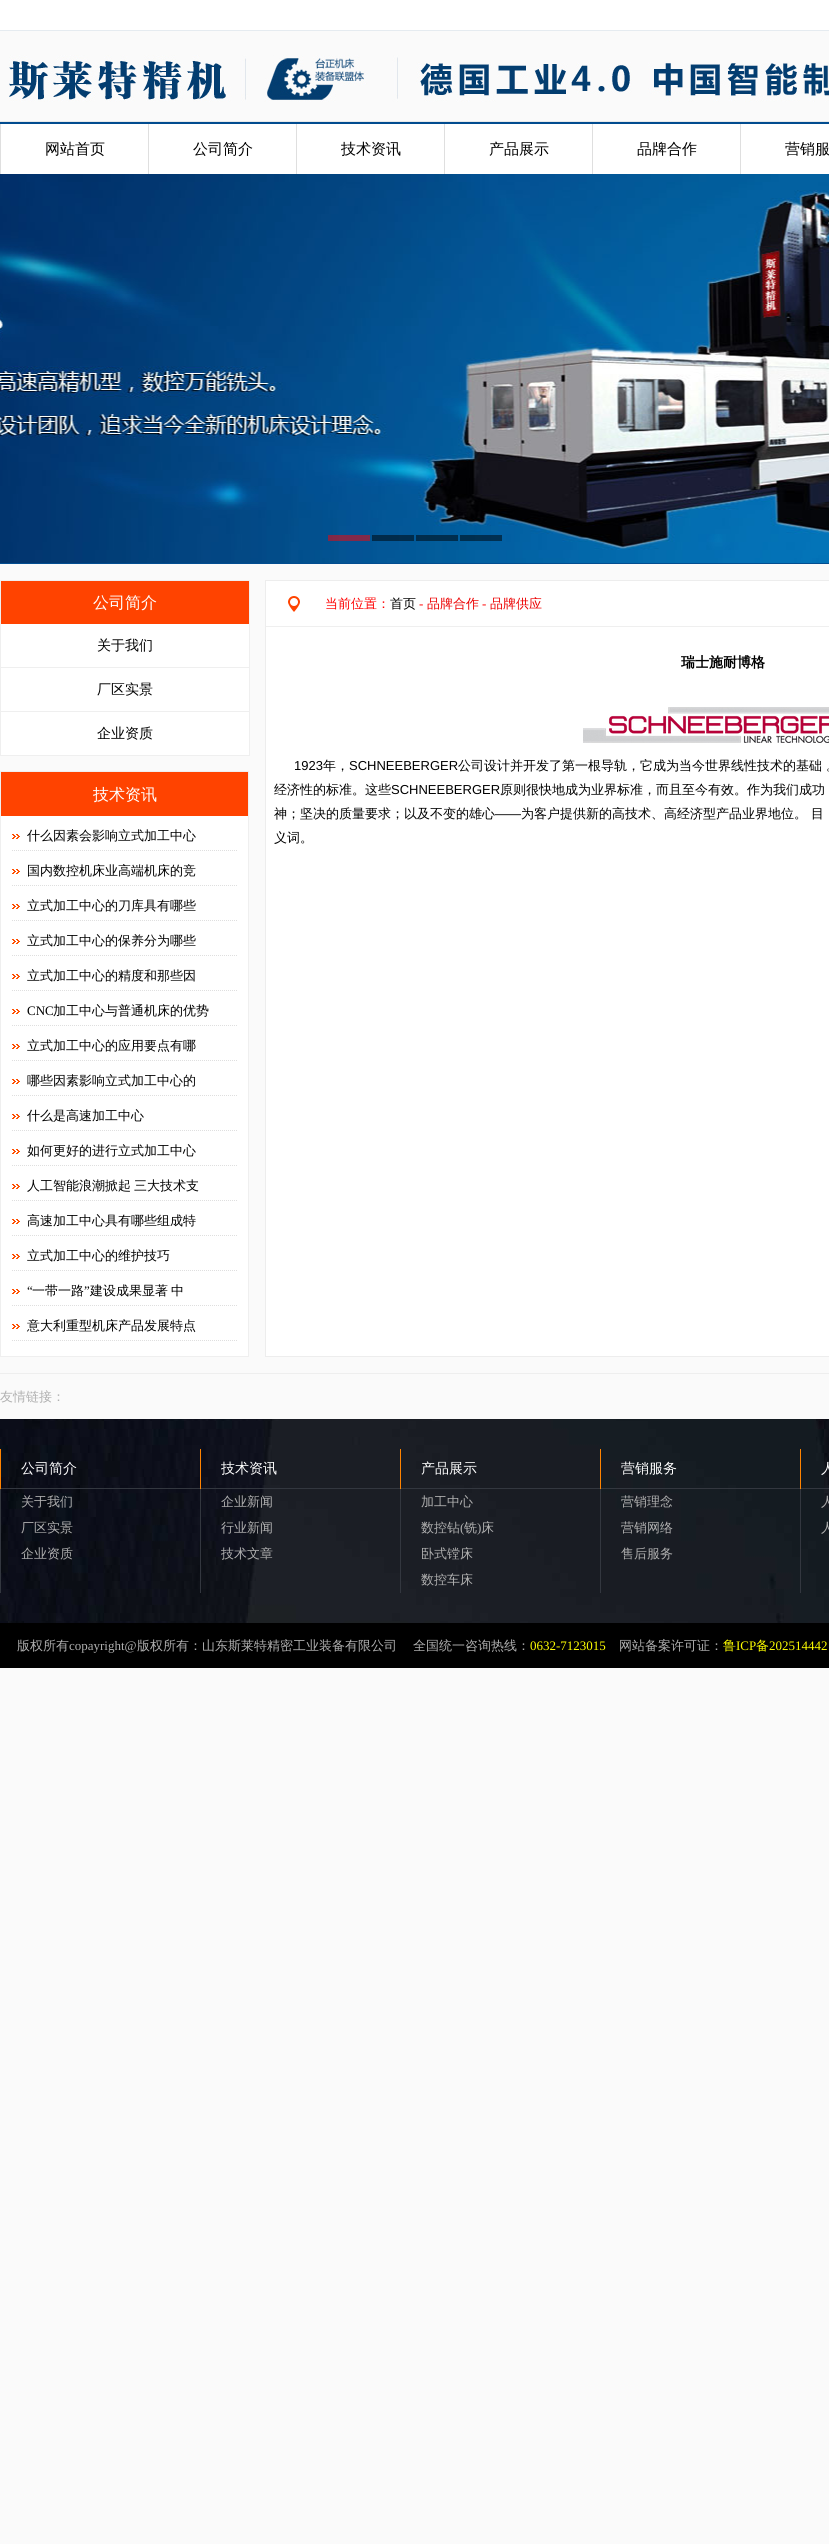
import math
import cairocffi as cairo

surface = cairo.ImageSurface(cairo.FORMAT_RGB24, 829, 2544)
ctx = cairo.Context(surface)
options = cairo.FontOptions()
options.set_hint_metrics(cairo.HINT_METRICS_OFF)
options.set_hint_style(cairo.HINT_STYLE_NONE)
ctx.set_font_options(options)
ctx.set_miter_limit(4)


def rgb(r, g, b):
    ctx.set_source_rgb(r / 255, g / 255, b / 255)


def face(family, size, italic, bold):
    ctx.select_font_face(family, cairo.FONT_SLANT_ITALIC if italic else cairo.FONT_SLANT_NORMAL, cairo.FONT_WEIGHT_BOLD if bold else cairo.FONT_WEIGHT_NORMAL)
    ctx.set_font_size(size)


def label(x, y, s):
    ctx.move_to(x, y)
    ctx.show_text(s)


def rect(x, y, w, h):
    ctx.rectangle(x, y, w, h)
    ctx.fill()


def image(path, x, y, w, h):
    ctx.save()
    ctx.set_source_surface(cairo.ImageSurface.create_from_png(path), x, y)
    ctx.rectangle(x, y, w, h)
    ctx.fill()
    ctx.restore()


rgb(250, 250, 250)
ctx.paint()
rgb(255, 255, 255)
rect(0, 0, 829, 30)
rgb(229, 235, 240)
rect(0, 30, 829, 1)
rgb(230, 232, 233)
rect(0, 121, 829, 1)
image('image0.png', 9, 55, 820, 47)
rgb(255, 255, 255)
rect(1, 124, 828, 50)
rgb(1, 76, 143)
rect(0, 122, 829, 2)
rgb(223, 223, 223)
rect(0, 124, 1, 50)
rect(148, 124, 1, 50)
face('WenQuanYi Zen Hei Medium', 15, 0, 0)
rgb(0, 0, 0)
label(45, 154, '网站首页')
rgb(223, 223, 223)
rect(296, 124, 1, 50)
rgb(0, 0, 0)
label(193, 154, '公司简介')
rgb(223, 223, 223)
rect(444, 124, 1, 50)
rgb(0, 0, 0)
label(341, 154, '技术资讯')
rgb(223, 223, 223)
rect(592, 124, 1, 50)
rgb(0, 0, 0)
label(489, 154, '产品展示')
rgb(223, 223, 223)
rect(740, 124, 1, 50)
rgb(0, 0, 0)
label(637, 154, '品牌合作')
label(785, 154, '营销服')
rgb(2, 77, 144)
rect(0, 563, 829, 1)
image('image1.png', 0, 174, 829, 389)
ctx.set_source_rgba(1, 0, 0, 0.5)
rect(328, 535, 42, 6)
ctx.set_source_rgba(0, 0, 0, 0.5)
rect(372, 535, 42, 6)
rect(416, 535, 42, 6)
rect(460, 535, 42, 6)
rgb(255, 255, 255)
rect(1, 624, 248, 131)
rgb(239, 239, 239)
rect(0, 580, 250, 1)
rect(249, 580, 1, 176)
rect(0, 580, 1, 176)
rgb(255, 67, 0)
rect(1, 581, 248, 43)
face('WenQuanYi Zen Hei Medium', 16, 0, 0)
rgb(255, 255, 255)
label(93, 608, '公司简介')
rgb(239, 239, 239)
rect(1, 667, 248, 1)
face('WenQuanYi Zen Hei Medium', 14, 0, 0)
rgb(0, 0, 0)
label(97, 650, '关于我们')
rgb(239, 239, 239)
rect(1, 711, 248, 1)
rgb(0, 0, 0)
label(97, 694, '厂区实景')
rgb(239, 239, 239)
rect(1, 755, 248, 1)
rgb(0, 0, 0)
label(97, 738, '企业资质')
rgb(255, 255, 255)
rect(1, 816, 247, 540)
ctx.rectangle(0.5, 771.5, 248, 585)
rgb(239, 239, 239)
ctx.set_line_width(1)
ctx.stroke()
rgb(255, 67, 0)
rect(1, 772, 247, 44)
face('WenQuanYi Zen Hei Medium', 16, 0, 0)
rgb(255, 255, 255)
label(93, 800, '技术资讯')
ctx.new_path()
ctx.move_to(12, 850.5)
ctx.line_to(237, 850.5)
rgb(223, 223, 223)
ctx.set_dash([1, 1])
ctx.stroke()
image('image2.png', 12, 834, 8, 5)
face('WenQuanYi Zen Hei Medium', 13, 0, 0)
rgb(0, 0, 0)
label(27, 840, '什么因素会影响立式加工中心')
ctx.new_path()
ctx.move_to(12, 885.5)
ctx.line_to(237, 885.5)
rgb(223, 223, 223)
ctx.stroke()
image('image2.png', 12, 869, 8, 5)
rgb(0, 0, 0)
label(27, 875, '国内数控机床业高端机床的竞')
ctx.new_path()
ctx.move_to(12, 920.5)
ctx.line_to(237, 920.5)
rgb(223, 223, 223)
ctx.stroke()
image('image2.png', 12, 904, 8, 5)
rgb(0, 0, 0)
label(27, 910, '立式加工中心的刀库具有哪些')
ctx.new_path()
ctx.move_to(12, 955.5)
ctx.line_to(237, 955.5)
rgb(223, 223, 223)
ctx.stroke()
image('image2.png', 12, 939, 8, 5)
rgb(0, 0, 0)
label(27, 945, '立式加工中心的保养分为哪些')
ctx.new_path()
ctx.move_to(12, 990.5)
ctx.line_to(237, 990.5)
rgb(223, 223, 223)
ctx.stroke()
image('image2.png', 12, 974, 8, 5)
rgb(0, 0, 0)
label(27, 980, '立式加工中心的精度和那些因')
ctx.new_path()
ctx.move_to(12, 1025.5)
ctx.line_to(237, 1025.5)
rgb(223, 223, 223)
ctx.stroke()
image('image2.png', 12, 1009, 8, 5)
face('Liberation Serif', 13, 0, 0)
rgb(0, 0, 0)
label(27, 1015, 'CNC')
face('WenQuanYi Zen Hei Medium', 13, 0, 0)
label(53, 1015, '加工中心与普通机床的优势')
ctx.new_path()
ctx.move_to(12, 1060.5)
ctx.line_to(237, 1060.5)
rgb(223, 223, 223)
ctx.stroke()
image('image2.png', 12, 1044, 8, 5)
rgb(0, 0, 0)
label(27, 1050, '立式加工中心的应用要点有哪')
ctx.new_path()
ctx.move_to(12, 1095.5)
ctx.line_to(237, 1095.5)
rgb(223, 223, 223)
ctx.stroke()
image('image2.png', 12, 1079, 8, 5)
rgb(0, 0, 0)
label(27, 1085, '哪些因素影响立式加工中心的')
ctx.new_path()
ctx.move_to(12, 1130.5)
ctx.line_to(237, 1130.5)
rgb(223, 223, 223)
ctx.stroke()
image('image2.png', 12, 1114, 8, 5)
rgb(0, 0, 0)
label(27, 1120, '什么是高速加工中心')
ctx.new_path()
ctx.move_to(12, 1165.5)
ctx.line_to(237, 1165.5)
rgb(223, 223, 223)
ctx.stroke()
image('image2.png', 12, 1149, 8, 5)
rgb(0, 0, 0)
label(27, 1155, '如何更好的进行立式加工中心')
ctx.new_path()
ctx.move_to(12, 1200.5)
ctx.line_to(237, 1200.5)
rgb(223, 223, 223)
ctx.stroke()
image('image2.png', 12, 1184, 8, 5)
rgb(0, 0, 0)
label(27, 1190, '人工智能浪潮掀起')
label(134, 1190, '三大技术支')
ctx.new_path()
ctx.move_to(12, 1235.5)
ctx.line_to(237, 1235.5)
rgb(223, 223, 223)
ctx.stroke()
image('image2.png', 12, 1219, 8, 5)
rgb(0, 0, 0)
label(27, 1225, '高速加工中心具有哪些组成特')
ctx.new_path()
ctx.move_to(12, 1270.5)
ctx.line_to(237, 1270.5)
rgb(223, 223, 223)
ctx.stroke()
image('image2.png', 12, 1254, 8, 5)
rgb(0, 0, 0)
label(27, 1260, '立式加工中心的维护技巧')
ctx.new_path()
ctx.move_to(12, 1305.5)
ctx.line_to(237, 1305.5)
rgb(223, 223, 223)
ctx.stroke()
face('Liberation Serif', 13, 0, 0)
rgb(0, 0, 0)
label(27, 1295, '“')
face('WenQuanYi Zen Hei Medium', 13, 0, 0)
label(32, 1295, '一带一路')
face('Liberation Serif', 13, 0, 0)
label(84, 1295, '”')
face('WenQuanYi Zen Hei Medium', 13, 0, 0)
label(90, 1295, '建设成果显著')
label(171, 1295, '中')
image('image2.png', 12, 1289, 8, 5)
ctx.new_path()
ctx.move_to(12, 1340.5)
ctx.line_to(237, 1340.5)
rgb(223, 223, 223)
ctx.stroke()
image('image2.png', 12, 1324, 8, 5)
rgb(0, 0, 0)
label(27, 1330, '意大利重型机床产品发展特点')
rgb(255, 255, 255)
ctx.rectangle(265.5, 580.5, 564, 776)
ctx.fill_preserve()
rgb(237, 237, 237)
ctx.set_dash([])
ctx.stroke()
rgb(239, 239, 239)
rect(266, 626, 563, 1)
image('image3.png', 288, 596, 12, 16)
rgb(255, 0, 0)
label(325, 608, '当前位置：')
rgb(0, 0, 0)
label(390, 608, '首页')
face('Liberation Serif', 13, 0, 0)
rgb(255, 0, 0)
label(419, 608, '-')
face('WenQuanYi Zen Hei Medium', 13, 0, 0)
rgb(236, 0, 0)
label(427, 608, '品牌合作')
face('Liberation Serif', 13, 0, 0)
rgb(255, 0, 0)
label(482, 608, '-')
face('WenQuanYi Zen Hei Medium', 13, 0, 0)
rgb(236, 0, 0)
label(490, 608, '品牌供应')
face('WenQuanYi Zen Hei', 14, 0, 1)
rgb(0, 0, 0)
label(681, 667, '瑞士施耐博格')
image('image4.png', 583, 707, 246, 36)
face('Liberation Sans', 13, 0, 0)
label(294, 770, '1923')
face('WenQuanYi Zen Hei Medium', 13, 0, 0)
label(323, 770, '年，')
face('Liberation Sans', 13, 0, 0)
label(349, 770, 'SCHNEEBERGER')
face('WenQuanYi Zen Hei Medium', 13, 0, 0)
label(458, 770, '公司设计并开发了第一根导轨，它成为当今世界线性技术的基础 。')
label(274, 794, '经济性的标准。这些')
face('Liberation Sans', 13, 0, 0)
label(391, 794, 'SCHNEEBERGER')
face('WenQuanYi Zen Hei Medium', 13, 0, 0)
label(500, 794, '原则很快地成为业界标准，而且至今有效。作为我们成功')
label(274, 818, '神；坚决的质量要求；以及不变的雄心')
face('Liberation Sans', 13, 0, 0)
label(495, 818, '——')
face('WenQuanYi Zen Hei Medium', 13, 0, 0)
label(521, 818, '为客户提供新的高技术、高经济型产品业界地位。 目')
label(274, 842, '义词。')
rgb(238, 238, 238)
rect(0, 1373, 829, 1)
rgb(176, 176, 176)
label(0, 1401, '友情链接：')
image('image5.png', 0, 1419, 829, 204)
rgb(51, 55, 63)
rect(0, 1488, 829, 1)
rgb(255, 131, 0)
rect(0, 1449, 1, 40)
face('WenQuanYi Zen Hei Medium', 14, 0, 0)
rgb(255, 255, 255)
label(21, 1473, '公司简介')
rgb(255, 131, 0)
rect(200, 1449, 1, 40)
rgb(255, 255, 255)
label(221, 1473, '技术资讯')
rgb(255, 131, 0)
rect(400, 1449, 1, 40)
rgb(255, 255, 255)
label(421, 1473, '产品展示')
rgb(255, 131, 0)
rect(600, 1449, 1, 40)
rgb(255, 255, 255)
label(621, 1473, '营销服务')
rgb(255, 131, 0)
rect(800, 1449, 1, 40)
rgb(255, 255, 255)
label(821, 1473, '人')
rgb(51, 55, 63)
rect(0, 1489, 1, 104)
face('WenQuanYi Zen Hei Medium', 13, 0, 0)
rgb(176, 176, 176)
label(21, 1506, '关于我们')
label(21, 1532, '厂区实景')
label(21, 1558, '企业资质')
rgb(51, 55, 63)
rect(200, 1489, 1, 104)
rgb(176, 176, 176)
label(221, 1506, '企业新闻')
label(221, 1532, '行业新闻')
label(221, 1558, '技术文章')
rgb(51, 55, 63)
rect(400, 1489, 1, 104)
rgb(176, 176, 176)
label(421, 1506, '加工中心')
label(421, 1532, '数控钻')
face('Liberation Serif', 13, 0, 0)
label(460, 1532, '(')
face('WenQuanYi Zen Hei Medium', 13, 0, 0)
label(464, 1532, '铣')
face('Liberation Serif', 13, 0, 0)
label(477, 1532, ')')
face('WenQuanYi Zen Hei Medium', 13, 0, 0)
label(481, 1532, '床')
label(421, 1558, '卧式镗床')
label(421, 1584, '数控车床')
rgb(51, 55, 63)
rect(600, 1489, 1, 104)
rgb(176, 176, 176)
label(621, 1506, '营销理念')
label(621, 1532, '营销网络')
label(621, 1558, '售后服务')
rgb(51, 55, 63)
rect(800, 1489, 1, 104)
rgb(176, 176, 176)
label(821, 1506, '人')
label(821, 1532, '人')
rgb(0, 0, 0)
rect(0, 1623, 829, 45)
rgb(176, 176, 176)
label(17, 1650, '版权所有')
face('Liberation Serif', 13, 0, 0)
label(69, 1650, 'copayright@')
face('WenQuanYi Zen Hei Medium', 13, 0, 0)
label(137, 1650, '版权所有：山东斯莱特精密工业装备有限公司')
label(413, 1650, '全国统一咨询热线：')
face('Liberation Serif', 13, 0, 0)
rgb(255, 255, 0)
label(530, 1650, '0632-7123015')
face('WenQuanYi Zen Hei Medium', 13, 0, 0)
rgb(176, 176, 176)
label(619, 1650, '网站备案许可证：')
rgb(255, 255, 0)
label(723, 1650, '鲁')
face('Liberation Serif', 13, 0, 0)
label(736, 1650, 'ICP')
face('WenQuanYi Zen Hei Medium', 13, 0, 0)
label(756, 1650, '备')
face('Liberation Serif', 13, 0, 0)
label(769, 1650, '202514442')
surface.write_to_png('render.png')
